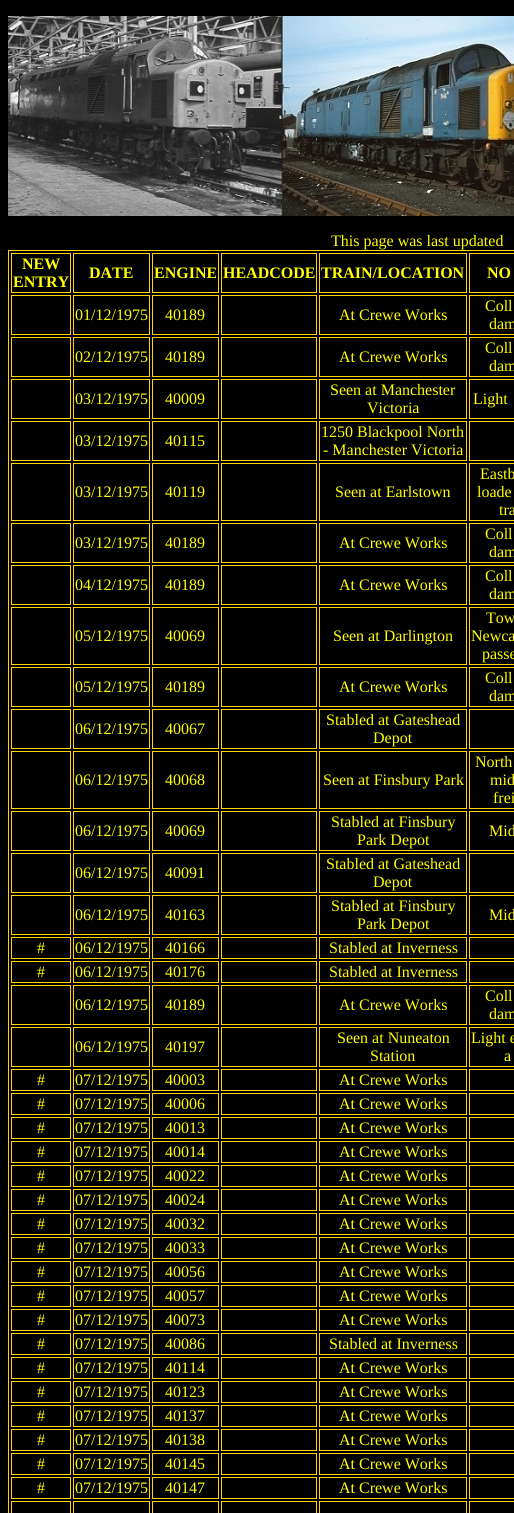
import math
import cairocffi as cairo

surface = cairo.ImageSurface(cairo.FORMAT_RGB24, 514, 1513)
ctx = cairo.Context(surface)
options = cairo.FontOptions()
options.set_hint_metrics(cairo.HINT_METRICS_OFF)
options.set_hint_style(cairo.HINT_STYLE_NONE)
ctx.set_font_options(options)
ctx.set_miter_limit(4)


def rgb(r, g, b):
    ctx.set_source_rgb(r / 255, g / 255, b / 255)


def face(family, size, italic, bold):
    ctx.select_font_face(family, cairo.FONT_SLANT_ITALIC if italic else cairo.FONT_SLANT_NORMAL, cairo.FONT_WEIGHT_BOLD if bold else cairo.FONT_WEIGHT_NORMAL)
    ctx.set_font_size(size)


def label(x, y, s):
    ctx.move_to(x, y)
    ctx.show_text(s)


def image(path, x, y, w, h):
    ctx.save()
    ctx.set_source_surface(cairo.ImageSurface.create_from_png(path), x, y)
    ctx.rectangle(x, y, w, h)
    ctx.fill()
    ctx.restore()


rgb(0, 0, 0)
ctx.paint()
image('image0.png', 8, 16, 506, 200)
face('Liberation Serif', 16, 0, 0)
rgb(255, 255, 0)
label(331, 246, 'This page was last updated')
ctx.rectangle(8.5, 250.5, 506, 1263)
rgb(255, 212, 0)
ctx.set_line_width(1)
ctx.stroke()
ctx.rectangle(11.5, 253.5, 59, 39)
ctx.stroke()
face('Liberation Serif', 16, 0, 1)
rgb(255, 255, 0)
label(22, 269, 'NEW')
label(13, 287, 'ENTRY')
ctx.rectangle(73.5, 253.5, 76, 39)
rgb(255, 212, 0)
ctx.stroke()
rgb(255, 255, 0)
label(89, 278, 'DATE')
ctx.rectangle(152.5, 253.5, 66, 39)
rgb(255, 212, 0)
ctx.stroke()
rgb(255, 255, 0)
label(154, 278, 'ENGINE')
ctx.rectangle(221.5, 253.5, 95, 39)
rgb(255, 212, 0)
ctx.stroke()
rgb(255, 255, 0)
label(223, 278, 'HEADCODE')
ctx.rectangle(319.5, 253.5, 147, 39)
rgb(255, 212, 0)
ctx.stroke()
rgb(255, 255, 0)
label(321, 278, 'TRAIN/LOCATION')
ctx.rectangle(469.5, 253.5, 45, 39)
rgb(255, 212, 0)
ctx.stroke()
rgb(255, 255, 0)
label(487, 278, 'NO')
ctx.rectangle(11.5, 295.5, 59, 39)
rgb(255, 212, 0)
ctx.stroke()
ctx.rectangle(73.5, 295.5, 76, 39)
ctx.stroke()
face('Liberation Serif', 16, 0, 0)
rgb(255, 255, 0)
label(75, 320, '01/12/1975')
ctx.rectangle(152.5, 295.5, 66, 39)
rgb(255, 212, 0)
ctx.stroke()
rgb(255, 255, 0)
label(165, 320, '40189')
ctx.rectangle(221.5, 295.5, 95, 39)
rgb(255, 212, 0)
ctx.stroke()
ctx.rectangle(319.5, 295.5, 147, 39)
ctx.stroke()
rgb(255, 255, 0)
label(339, 320, 'At Crewe Works')
ctx.rectangle(469.5, 295.5, 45, 39)
rgb(255, 212, 0)
ctx.stroke()
rgb(255, 255, 0)
label(485, 311, 'Coll')
label(489, 329, 'dam')
ctx.rectangle(11.5, 337.5, 59, 39)
rgb(255, 212, 0)
ctx.stroke()
ctx.rectangle(73.5, 337.5, 76, 39)
ctx.stroke()
rgb(255, 255, 0)
label(75, 362, '02/12/1975')
ctx.rectangle(152.5, 337.5, 66, 39)
rgb(255, 212, 0)
ctx.stroke()
rgb(255, 255, 0)
label(165, 362, '40189')
ctx.rectangle(221.5, 337.5, 95, 39)
rgb(255, 212, 0)
ctx.stroke()
ctx.rectangle(319.5, 337.5, 147, 39)
ctx.stroke()
rgb(255, 255, 0)
label(339, 362, 'At Crewe Works')
ctx.rectangle(469.5, 337.5, 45, 39)
rgb(255, 212, 0)
ctx.stroke()
rgb(255, 255, 0)
label(485, 353, 'Coll')
label(489, 371, 'dam')
ctx.rectangle(11.5, 379.5, 59, 39)
rgb(255, 212, 0)
ctx.stroke()
ctx.rectangle(73.5, 379.5, 76, 39)
ctx.stroke()
rgb(255, 255, 0)
label(75, 404, '03/12/1975')
ctx.rectangle(152.5, 379.5, 66, 39)
rgb(255, 212, 0)
ctx.stroke()
rgb(255, 255, 0)
label(165, 404, '40009')
ctx.rectangle(221.5, 379.5, 95, 39)
rgb(255, 212, 0)
ctx.stroke()
ctx.rectangle(319.5, 379.5, 147, 39)
ctx.stroke()
rgb(255, 255, 0)
label(330, 395, 'Seen at Manchester')
label(367, 413, 'Victoria')
ctx.rectangle(469.5, 379.5, 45, 39)
rgb(255, 212, 0)
ctx.stroke()
rgb(255, 255, 0)
label(473, 404, 'Light')
ctx.rectangle(11.5, 421.5, 59, 39)
rgb(255, 212, 0)
ctx.stroke()
ctx.rectangle(73.5, 421.5, 76, 39)
ctx.stroke()
rgb(255, 255, 0)
label(75, 446, '03/12/1975')
ctx.rectangle(152.5, 421.5, 66, 39)
rgb(255, 212, 0)
ctx.stroke()
rgb(255, 255, 0)
label(165, 446, '40115')
ctx.rectangle(221.5, 421.5, 95, 39)
rgb(255, 212, 0)
ctx.stroke()
ctx.rectangle(319.5, 421.5, 147, 39)
ctx.stroke()
rgb(255, 255, 0)
label(321, 437, '1250 Blackpool North')
label(323, 455, '- Manchester Victoria')
ctx.rectangle(469.5, 421.5, 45, 39)
rgb(255, 212, 0)
ctx.stroke()
ctx.rectangle(11.5, 463.5, 59, 57)
ctx.stroke()
ctx.rectangle(73.5, 463.5, 76, 57)
ctx.stroke()
rgb(255, 255, 0)
label(75, 497, '03/12/1975')
ctx.rectangle(152.5, 463.5, 66, 57)
rgb(255, 212, 0)
ctx.stroke()
rgb(255, 255, 0)
label(165, 497, '40119')
ctx.rectangle(221.5, 463.5, 95, 57)
rgb(255, 212, 0)
ctx.stroke()
ctx.rectangle(319.5, 463.5, 147, 57)
ctx.stroke()
rgb(255, 255, 0)
label(335, 497, 'Seen at Earlstown')
ctx.rectangle(469.5, 463.5, 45, 57)
rgb(255, 212, 0)
ctx.stroke()
rgb(255, 255, 0)
label(480, 479, 'Eastb')
label(477, 497, 'loade')
label(499, 515, 'tra')
ctx.rectangle(11.5, 523.5, 59, 39)
rgb(255, 212, 0)
ctx.stroke()
ctx.rectangle(73.5, 523.5, 76, 39)
ctx.stroke()
rgb(255, 255, 0)
label(75, 548, '03/12/1975')
ctx.rectangle(152.5, 523.5, 66, 39)
rgb(255, 212, 0)
ctx.stroke()
rgb(255, 255, 0)
label(165, 548, '40189')
ctx.rectangle(221.5, 523.5, 95, 39)
rgb(255, 212, 0)
ctx.stroke()
ctx.rectangle(319.5, 523.5, 147, 39)
ctx.stroke()
rgb(255, 255, 0)
label(339, 548, 'At Crewe Works')
ctx.rectangle(469.5, 523.5, 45, 39)
rgb(255, 212, 0)
ctx.stroke()
rgb(255, 255, 0)
label(485, 539, 'Coll')
label(489, 557, 'dam')
ctx.rectangle(11.5, 565.5, 59, 39)
rgb(255, 212, 0)
ctx.stroke()
ctx.rectangle(73.5, 565.5, 76, 39)
ctx.stroke()
rgb(255, 255, 0)
label(75, 590, '04/12/1975')
ctx.rectangle(152.5, 565.5, 66, 39)
rgb(255, 212, 0)
ctx.stroke()
rgb(255, 255, 0)
label(165, 590, '40189')
ctx.rectangle(221.5, 565.5, 95, 39)
rgb(255, 212, 0)
ctx.stroke()
ctx.rectangle(319.5, 565.5, 147, 39)
ctx.stroke()
rgb(255, 255, 0)
label(339, 590, 'At Crewe Works')
ctx.rectangle(469.5, 565.5, 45, 39)
rgb(255, 212, 0)
ctx.stroke()
rgb(255, 255, 0)
label(485, 581, 'Coll')
label(489, 599, 'dam')
ctx.rectangle(11.5, 607.5, 59, 57)
rgb(255, 212, 0)
ctx.stroke()
ctx.rectangle(73.5, 607.5, 76, 57)
ctx.stroke()
rgb(255, 255, 0)
label(75, 641, '05/12/1975')
ctx.rectangle(152.5, 607.5, 66, 57)
rgb(255, 212, 0)
ctx.stroke()
rgb(255, 255, 0)
label(165, 641, '40069')
ctx.rectangle(221.5, 607.5, 95, 57)
rgb(255, 212, 0)
ctx.stroke()
ctx.rectangle(319.5, 607.5, 147, 57)
ctx.stroke()
rgb(255, 255, 0)
label(333, 641, 'Seen at Darlington')
ctx.rectangle(469.5, 607.5, 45, 57)
rgb(255, 212, 0)
ctx.stroke()
rgb(255, 255, 0)
label(486, 623, 'Tow')
label(471, 641, 'Newca')
label(482, 659, 'passe')
ctx.rectangle(11.5, 667.5, 59, 39)
rgb(255, 212, 0)
ctx.stroke()
ctx.rectangle(73.5, 667.5, 76, 39)
ctx.stroke()
rgb(255, 255, 0)
label(75, 692, '05/12/1975')
ctx.rectangle(152.5, 667.5, 66, 39)
rgb(255, 212, 0)
ctx.stroke()
rgb(255, 255, 0)
label(165, 692, '40189')
ctx.rectangle(221.5, 667.5, 95, 39)
rgb(255, 212, 0)
ctx.stroke()
ctx.rectangle(319.5, 667.5, 147, 39)
ctx.stroke()
rgb(255, 255, 0)
label(339, 692, 'At Crewe Works')
ctx.rectangle(469.5, 667.5, 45, 39)
rgb(255, 212, 0)
ctx.stroke()
rgb(255, 255, 0)
label(485, 683, 'Coll')
label(489, 701, 'dam')
ctx.rectangle(11.5, 709.5, 59, 39)
rgb(255, 212, 0)
ctx.stroke()
ctx.rectangle(73.5, 709.5, 76, 39)
ctx.stroke()
rgb(255, 255, 0)
label(75, 734, '06/12/1975')
ctx.rectangle(152.5, 709.5, 66, 39)
rgb(255, 212, 0)
ctx.stroke()
rgb(255, 255, 0)
label(165, 734, '40067')
ctx.rectangle(221.5, 709.5, 95, 39)
rgb(255, 212, 0)
ctx.stroke()
ctx.rectangle(319.5, 709.5, 147, 39)
ctx.stroke()
rgb(255, 255, 0)
label(326, 725, 'Stabled at Gateshead')
label(373, 743, 'Depot')
ctx.rectangle(469.5, 709.5, 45, 39)
rgb(255, 212, 0)
ctx.stroke()
ctx.rectangle(11.5, 751.5, 59, 57)
ctx.stroke()
ctx.rectangle(73.5, 751.5, 76, 57)
ctx.stroke()
rgb(255, 255, 0)
label(75, 785, '06/12/1975')
ctx.rectangle(152.5, 751.5, 66, 57)
rgb(255, 212, 0)
ctx.stroke()
rgb(255, 255, 0)
label(165, 785, '40068')
ctx.rectangle(221.5, 751.5, 95, 57)
rgb(255, 212, 0)
ctx.stroke()
ctx.rectangle(319.5, 751.5, 147, 57)
ctx.stroke()
rgb(255, 255, 0)
label(323, 785, 'Seen at Finsbury Park')
ctx.rectangle(469.5, 751.5, 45, 57)
rgb(255, 212, 0)
ctx.stroke()
rgb(255, 255, 0)
label(475, 767, 'North')
label(490, 785, 'mid')
label(493, 803, 'frei')
ctx.rectangle(11.5, 811.5, 59, 39)
rgb(255, 212, 0)
ctx.stroke()
ctx.rectangle(73.5, 811.5, 76, 39)
ctx.stroke()
rgb(255, 255, 0)
label(75, 836, '06/12/1975')
ctx.rectangle(152.5, 811.5, 66, 39)
rgb(255, 212, 0)
ctx.stroke()
rgb(255, 255, 0)
label(165, 836, '40069')
ctx.rectangle(221.5, 811.5, 95, 39)
rgb(255, 212, 0)
ctx.stroke()
ctx.rectangle(319.5, 811.5, 147, 39)
ctx.stroke()
rgb(255, 255, 0)
label(331, 827, 'Stabled at Finsbury')
label(357, 845, 'Park Depot')
ctx.rectangle(469.5, 811.5, 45, 39)
rgb(255, 212, 0)
ctx.stroke()
rgb(255, 255, 0)
label(489, 836, 'Mid')
ctx.rectangle(11.5, 853.5, 59, 39)
rgb(255, 212, 0)
ctx.stroke()
ctx.rectangle(73.5, 853.5, 76, 39)
ctx.stroke()
rgb(255, 255, 0)
label(75, 878, '06/12/1975')
ctx.rectangle(152.5, 853.5, 66, 39)
rgb(255, 212, 0)
ctx.stroke()
rgb(255, 255, 0)
label(165, 878, '40091')
ctx.rectangle(221.5, 853.5, 95, 39)
rgb(255, 212, 0)
ctx.stroke()
ctx.rectangle(319.5, 853.5, 147, 39)
ctx.stroke()
rgb(255, 255, 0)
label(326, 869, 'Stabled at Gateshead')
label(373, 887, 'Depot')
ctx.rectangle(469.5, 853.5, 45, 39)
rgb(255, 212, 0)
ctx.stroke()
ctx.rectangle(11.5, 895.5, 59, 39)
ctx.stroke()
ctx.rectangle(73.5, 895.5, 76, 39)
ctx.stroke()
rgb(255, 255, 0)
label(75, 920, '06/12/1975')
ctx.rectangle(152.5, 895.5, 66, 39)
rgb(255, 212, 0)
ctx.stroke()
rgb(255, 255, 0)
label(165, 920, '40163')
ctx.rectangle(221.5, 895.5, 95, 39)
rgb(255, 212, 0)
ctx.stroke()
ctx.rectangle(319.5, 895.5, 147, 39)
ctx.stroke()
rgb(255, 255, 0)
label(331, 911, 'Stabled at Finsbury')
label(357, 929, 'Park Depot')
ctx.rectangle(469.5, 895.5, 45, 39)
rgb(255, 212, 0)
ctx.stroke()
rgb(255, 255, 0)
label(489, 920, 'Mid')
ctx.rectangle(11.5, 937.5, 59, 21)
rgb(255, 212, 0)
ctx.stroke()
rgb(255, 255, 0)
label(37, 953, '#')
ctx.rectangle(73.5, 937.5, 76, 21)
rgb(255, 212, 0)
ctx.stroke()
rgb(255, 255, 0)
label(75, 953, '06/12/1975')
ctx.rectangle(152.5, 937.5, 66, 21)
rgb(255, 212, 0)
ctx.stroke()
rgb(255, 255, 0)
label(165, 953, '40166')
ctx.rectangle(221.5, 937.5, 95, 21)
rgb(255, 212, 0)
ctx.stroke()
ctx.rectangle(319.5, 937.5, 147, 21)
ctx.stroke()
rgb(255, 255, 0)
label(329, 953, 'Stabled at Inverness')
ctx.rectangle(469.5, 937.5, 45, 21)
rgb(255, 212, 0)
ctx.stroke()
ctx.rectangle(11.5, 961.5, 59, 21)
ctx.stroke()
rgb(255, 255, 0)
label(37, 977, '#')
ctx.rectangle(73.5, 961.5, 76, 21)
rgb(255, 212, 0)
ctx.stroke()
rgb(255, 255, 0)
label(75, 977, '06/12/1975')
ctx.rectangle(152.5, 961.5, 66, 21)
rgb(255, 212, 0)
ctx.stroke()
rgb(255, 255, 0)
label(165, 977, '40176')
ctx.rectangle(221.5, 961.5, 95, 21)
rgb(255, 212, 0)
ctx.stroke()
ctx.rectangle(319.5, 961.5, 147, 21)
ctx.stroke()
rgb(255, 255, 0)
label(329, 977, 'Stabled at Inverness')
ctx.rectangle(469.5, 961.5, 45, 21)
rgb(255, 212, 0)
ctx.stroke()
ctx.rectangle(11.5, 985.5, 59, 39)
ctx.stroke()
ctx.rectangle(73.5, 985.5, 76, 39)
ctx.stroke()
rgb(255, 255, 0)
label(75, 1010, '06/12/1975')
ctx.rectangle(152.5, 985.5, 66, 39)
rgb(255, 212, 0)
ctx.stroke()
rgb(255, 255, 0)
label(165, 1010, '40189')
ctx.rectangle(221.5, 985.5, 95, 39)
rgb(255, 212, 0)
ctx.stroke()
ctx.rectangle(319.5, 985.5, 147, 39)
ctx.stroke()
rgb(255, 255, 0)
label(339, 1010, 'At Crewe Works')
ctx.rectangle(469.5, 985.5, 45, 39)
rgb(255, 212, 0)
ctx.stroke()
rgb(255, 255, 0)
label(485, 1001, 'Coll')
label(489, 1019, 'dam')
ctx.rectangle(11.5, 1027.5, 59, 39)
rgb(255, 212, 0)
ctx.stroke()
ctx.rectangle(73.5, 1027.5, 76, 39)
ctx.stroke()
rgb(255, 255, 0)
label(75, 1052, '06/12/1975')
ctx.rectangle(152.5, 1027.5, 66, 39)
rgb(255, 212, 0)
ctx.stroke()
rgb(255, 255, 0)
label(165, 1052, '40197')
ctx.rectangle(221.5, 1027.5, 95, 39)
rgb(255, 212, 0)
ctx.stroke()
ctx.rectangle(319.5, 1027.5, 147, 39)
ctx.stroke()
rgb(255, 255, 0)
label(337, 1043, 'Seen at Nuneaton')
label(370, 1061, 'Station')
ctx.rectangle(469.5, 1027.5, 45, 39)
rgb(255, 212, 0)
ctx.stroke()
rgb(255, 255, 0)
label(471, 1043, 'Light e')
label(504, 1061, 'a')
ctx.rectangle(11.5, 1069.5, 59, 21)
rgb(255, 212, 0)
ctx.stroke()
rgb(255, 255, 0)
label(37, 1085, '#')
ctx.rectangle(73.5, 1069.5, 76, 21)
rgb(255, 212, 0)
ctx.stroke()
rgb(255, 255, 0)
label(75, 1085, '07/12/1975')
ctx.rectangle(152.5, 1069.5, 66, 21)
rgb(255, 212, 0)
ctx.stroke()
rgb(255, 255, 0)
label(165, 1085, '40003')
ctx.rectangle(221.5, 1069.5, 95, 21)
rgb(255, 212, 0)
ctx.stroke()
ctx.rectangle(319.5, 1069.5, 147, 21)
ctx.stroke()
rgb(255, 255, 0)
label(339, 1085, 'At Crewe Works')
ctx.rectangle(469.5, 1069.5, 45, 21)
rgb(255, 212, 0)
ctx.stroke()
ctx.rectangle(11.5, 1093.5, 59, 21)
ctx.stroke()
rgb(255, 255, 0)
label(37, 1109, '#')
ctx.rectangle(73.5, 1093.5, 76, 21)
rgb(255, 212, 0)
ctx.stroke()
rgb(255, 255, 0)
label(75, 1109, '07/12/1975')
ctx.rectangle(152.5, 1093.5, 66, 21)
rgb(255, 212, 0)
ctx.stroke()
rgb(255, 255, 0)
label(165, 1109, '40006')
ctx.rectangle(221.5, 1093.5, 95, 21)
rgb(255, 212, 0)
ctx.stroke()
ctx.rectangle(319.5, 1093.5, 147, 21)
ctx.stroke()
rgb(255, 255, 0)
label(339, 1109, 'At Crewe Works')
ctx.rectangle(469.5, 1093.5, 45, 21)
rgb(255, 212, 0)
ctx.stroke()
ctx.rectangle(11.5, 1117.5, 59, 21)
ctx.stroke()
rgb(255, 255, 0)
label(37, 1133, '#')
ctx.rectangle(73.5, 1117.5, 76, 21)
rgb(255, 212, 0)
ctx.stroke()
rgb(255, 255, 0)
label(75, 1133, '07/12/1975')
ctx.rectangle(152.5, 1117.5, 66, 21)
rgb(255, 212, 0)
ctx.stroke()
rgb(255, 255, 0)
label(165, 1133, '40013')
ctx.rectangle(221.5, 1117.5, 95, 21)
rgb(255, 212, 0)
ctx.stroke()
ctx.rectangle(319.5, 1117.5, 147, 21)
ctx.stroke()
rgb(255, 255, 0)
label(339, 1133, 'At Crewe Works')
ctx.rectangle(469.5, 1117.5, 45, 21)
rgb(255, 212, 0)
ctx.stroke()
ctx.rectangle(11.5, 1141.5, 59, 21)
ctx.stroke()
rgb(255, 255, 0)
label(37, 1157, '#')
ctx.rectangle(73.5, 1141.5, 76, 21)
rgb(255, 212, 0)
ctx.stroke()
rgb(255, 255, 0)
label(75, 1157, '07/12/1975')
ctx.rectangle(152.5, 1141.5, 66, 21)
rgb(255, 212, 0)
ctx.stroke()
rgb(255, 255, 0)
label(165, 1157, '40014')
ctx.rectangle(221.5, 1141.5, 95, 21)
rgb(255, 212, 0)
ctx.stroke()
ctx.rectangle(319.5, 1141.5, 147, 21)
ctx.stroke()
rgb(255, 255, 0)
label(339, 1157, 'At Crewe Works')
ctx.rectangle(469.5, 1141.5, 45, 21)
rgb(255, 212, 0)
ctx.stroke()
ctx.rectangle(11.5, 1165.5, 59, 21)
ctx.stroke()
rgb(255, 255, 0)
label(37, 1181, '#')
ctx.rectangle(73.5, 1165.5, 76, 21)
rgb(255, 212, 0)
ctx.stroke()
rgb(255, 255, 0)
label(75, 1181, '07/12/1975')
ctx.rectangle(152.5, 1165.5, 66, 21)
rgb(255, 212, 0)
ctx.stroke()
rgb(255, 255, 0)
label(165, 1181, '40022')
ctx.rectangle(221.5, 1165.5, 95, 21)
rgb(255, 212, 0)
ctx.stroke()
ctx.rectangle(319.5, 1165.5, 147, 21)
ctx.stroke()
rgb(255, 255, 0)
label(339, 1181, 'At Crewe Works')
ctx.rectangle(469.5, 1165.5, 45, 21)
rgb(255, 212, 0)
ctx.stroke()
ctx.rectangle(11.5, 1189.5, 59, 21)
ctx.stroke()
rgb(255, 255, 0)
label(37, 1205, '#')
ctx.rectangle(73.5, 1189.5, 76, 21)
rgb(255, 212, 0)
ctx.stroke()
rgb(255, 255, 0)
label(75, 1205, '07/12/1975')
ctx.rectangle(152.5, 1189.5, 66, 21)
rgb(255, 212, 0)
ctx.stroke()
rgb(255, 255, 0)
label(165, 1205, '40024')
ctx.rectangle(221.5, 1189.5, 95, 21)
rgb(255, 212, 0)
ctx.stroke()
ctx.rectangle(319.5, 1189.5, 147, 21)
ctx.stroke()
rgb(255, 255, 0)
label(339, 1205, 'At Crewe Works')
ctx.rectangle(469.5, 1189.5, 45, 21)
rgb(255, 212, 0)
ctx.stroke()
ctx.rectangle(11.5, 1213.5, 59, 21)
ctx.stroke()
rgb(255, 255, 0)
label(37, 1229, '#')
ctx.rectangle(73.5, 1213.5, 76, 21)
rgb(255, 212, 0)
ctx.stroke()
rgb(255, 255, 0)
label(75, 1229, '07/12/1975')
ctx.rectangle(152.5, 1213.5, 66, 21)
rgb(255, 212, 0)
ctx.stroke()
rgb(255, 255, 0)
label(165, 1229, '40032')
ctx.rectangle(221.5, 1213.5, 95, 21)
rgb(255, 212, 0)
ctx.stroke()
ctx.rectangle(319.5, 1213.5, 147, 21)
ctx.stroke()
rgb(255, 255, 0)
label(339, 1229, 'At Crewe Works')
ctx.rectangle(469.5, 1213.5, 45, 21)
rgb(255, 212, 0)
ctx.stroke()
ctx.rectangle(11.5, 1237.5, 59, 21)
ctx.stroke()
rgb(255, 255, 0)
label(37, 1253, '#')
ctx.rectangle(73.5, 1237.5, 76, 21)
rgb(255, 212, 0)
ctx.stroke()
rgb(255, 255, 0)
label(75, 1253, '07/12/1975')
ctx.rectangle(152.5, 1237.5, 66, 21)
rgb(255, 212, 0)
ctx.stroke()
rgb(255, 255, 0)
label(165, 1253, '40033')
ctx.rectangle(221.5, 1237.5, 95, 21)
rgb(255, 212, 0)
ctx.stroke()
ctx.rectangle(319.5, 1237.5, 147, 21)
ctx.stroke()
rgb(255, 255, 0)
label(339, 1253, 'At Crewe Works')
ctx.rectangle(469.5, 1237.5, 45, 21)
rgb(255, 212, 0)
ctx.stroke()
ctx.rectangle(11.5, 1261.5, 59, 21)
ctx.stroke()
rgb(255, 255, 0)
label(37, 1277, '#')
ctx.rectangle(73.5, 1261.5, 76, 21)
rgb(255, 212, 0)
ctx.stroke()
rgb(255, 255, 0)
label(75, 1277, '07/12/1975')
ctx.rectangle(152.5, 1261.5, 66, 21)
rgb(255, 212, 0)
ctx.stroke()
rgb(255, 255, 0)
label(165, 1277, '40056')
ctx.rectangle(221.5, 1261.5, 95, 21)
rgb(255, 212, 0)
ctx.stroke()
ctx.rectangle(319.5, 1261.5, 147, 21)
ctx.stroke()
rgb(255, 255, 0)
label(339, 1277, 'At Crewe Works')
ctx.rectangle(469.5, 1261.5, 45, 21)
rgb(255, 212, 0)
ctx.stroke()
ctx.rectangle(11.5, 1285.5, 59, 21)
ctx.stroke()
rgb(255, 255, 0)
label(37, 1301, '#')
ctx.rectangle(73.5, 1285.5, 76, 21)
rgb(255, 212, 0)
ctx.stroke()
rgb(255, 255, 0)
label(75, 1301, '07/12/1975')
ctx.rectangle(152.5, 1285.5, 66, 21)
rgb(255, 212, 0)
ctx.stroke()
rgb(255, 255, 0)
label(165, 1301, '40057')
ctx.rectangle(221.5, 1285.5, 95, 21)
rgb(255, 212, 0)
ctx.stroke()
ctx.rectangle(319.5, 1285.5, 147, 21)
ctx.stroke()
rgb(255, 255, 0)
label(339, 1301, 'At Crewe Works')
ctx.rectangle(469.5, 1285.5, 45, 21)
rgb(255, 212, 0)
ctx.stroke()
ctx.rectangle(11.5, 1309.5, 59, 21)
ctx.stroke()
rgb(255, 255, 0)
label(37, 1325, '#')
ctx.rectangle(73.5, 1309.5, 76, 21)
rgb(255, 212, 0)
ctx.stroke()
rgb(255, 255, 0)
label(75, 1325, '07/12/1975')
ctx.rectangle(152.5, 1309.5, 66, 21)
rgb(255, 212, 0)
ctx.stroke()
rgb(255, 255, 0)
label(165, 1325, '40073')
ctx.rectangle(221.5, 1309.5, 95, 21)
rgb(255, 212, 0)
ctx.stroke()
ctx.rectangle(319.5, 1309.5, 147, 21)
ctx.stroke()
rgb(255, 255, 0)
label(339, 1325, 'At Crewe Works')
ctx.rectangle(469.5, 1309.5, 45, 21)
rgb(255, 212, 0)
ctx.stroke()
ctx.rectangle(11.5, 1333.5, 59, 21)
ctx.stroke()
rgb(255, 255, 0)
label(37, 1349, '#')
ctx.rectangle(73.5, 1333.5, 76, 21)
rgb(255, 212, 0)
ctx.stroke()
rgb(255, 255, 0)
label(75, 1349, '07/12/1975')
ctx.rectangle(152.5, 1333.5, 66, 21)
rgb(255, 212, 0)
ctx.stroke()
rgb(255, 255, 0)
label(165, 1349, '40086')
ctx.rectangle(221.5, 1333.5, 95, 21)
rgb(255, 212, 0)
ctx.stroke()
ctx.rectangle(319.5, 1333.5, 147, 21)
ctx.stroke()
rgb(255, 255, 0)
label(329, 1349, 'Stabled at Inverness')
ctx.rectangle(469.5, 1333.5, 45, 21)
rgb(255, 212, 0)
ctx.stroke()
ctx.rectangle(11.5, 1357.5, 59, 21)
ctx.stroke()
rgb(255, 255, 0)
label(37, 1373, '#')
ctx.rectangle(73.5, 1357.5, 76, 21)
rgb(255, 212, 0)
ctx.stroke()
rgb(255, 255, 0)
label(75, 1373, '07/12/1975')
ctx.rectangle(152.5, 1357.5, 66, 21)
rgb(255, 212, 0)
ctx.stroke()
rgb(255, 255, 0)
label(165, 1373, '40114')
ctx.rectangle(221.5, 1357.5, 95, 21)
rgb(255, 212, 0)
ctx.stroke()
ctx.rectangle(319.5, 1357.5, 147, 21)
ctx.stroke()
rgb(255, 255, 0)
label(339, 1373, 'At Crewe Works')
ctx.rectangle(469.5, 1357.5, 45, 21)
rgb(255, 212, 0)
ctx.stroke()
ctx.rectangle(11.5, 1381.5, 59, 21)
ctx.stroke()
rgb(255, 255, 0)
label(37, 1397, '#')
ctx.rectangle(73.5, 1381.5, 76, 21)
rgb(255, 212, 0)
ctx.stroke()
rgb(255, 255, 0)
label(75, 1397, '07/12/1975')
ctx.rectangle(152.5, 1381.5, 66, 21)
rgb(255, 212, 0)
ctx.stroke()
rgb(255, 255, 0)
label(165, 1397, '40123')
ctx.rectangle(221.5, 1381.5, 95, 21)
rgb(255, 212, 0)
ctx.stroke()
ctx.rectangle(319.5, 1381.5, 147, 21)
ctx.stroke()
rgb(255, 255, 0)
label(339, 1397, 'At Crewe Works')
ctx.rectangle(469.5, 1381.5, 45, 21)
rgb(255, 212, 0)
ctx.stroke()
ctx.rectangle(11.5, 1405.5, 59, 21)
ctx.stroke()
rgb(255, 255, 0)
label(37, 1421, '#')
ctx.rectangle(73.5, 1405.5, 76, 21)
rgb(255, 212, 0)
ctx.stroke()
rgb(255, 255, 0)
label(75, 1421, '07/12/1975')
ctx.rectangle(152.5, 1405.5, 66, 21)
rgb(255, 212, 0)
ctx.stroke()
rgb(255, 255, 0)
label(165, 1421, '40137')
ctx.rectangle(221.5, 1405.5, 95, 21)
rgb(255, 212, 0)
ctx.stroke()
ctx.rectangle(319.5, 1405.5, 147, 21)
ctx.stroke()
rgb(255, 255, 0)
label(339, 1421, 'At Crewe Works')
ctx.rectangle(469.5, 1405.5, 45, 21)
rgb(255, 212, 0)
ctx.stroke()
ctx.rectangle(11.5, 1429.5, 59, 21)
ctx.stroke()
rgb(255, 255, 0)
label(37, 1445, '#')
ctx.rectangle(73.5, 1429.5, 76, 21)
rgb(255, 212, 0)
ctx.stroke()
rgb(255, 255, 0)
label(75, 1445, '07/12/1975')
ctx.rectangle(152.5, 1429.5, 66, 21)
rgb(255, 212, 0)
ctx.stroke()
rgb(255, 255, 0)
label(165, 1445, '40138')
ctx.rectangle(221.5, 1429.5, 95, 21)
rgb(255, 212, 0)
ctx.stroke()
ctx.rectangle(319.5, 1429.5, 147, 21)
ctx.stroke()
rgb(255, 255, 0)
label(339, 1445, 'At Crewe Works')
ctx.rectangle(469.5, 1429.5, 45, 21)
rgb(255, 212, 0)
ctx.stroke()
ctx.rectangle(11.5, 1453.5, 59, 21)
ctx.stroke()
rgb(255, 255, 0)
label(37, 1469, '#')
ctx.rectangle(73.5, 1453.5, 76, 21)
rgb(255, 212, 0)
ctx.stroke()
rgb(255, 255, 0)
label(75, 1469, '07/12/1975')
ctx.rectangle(152.5, 1453.5, 66, 21)
rgb(255, 212, 0)
ctx.stroke()
rgb(255, 255, 0)
label(165, 1469, '40145')
ctx.rectangle(221.5, 1453.5, 95, 21)
rgb(255, 212, 0)
ctx.stroke()
ctx.rectangle(319.5, 1453.5, 147, 21)
ctx.stroke()
rgb(255, 255, 0)
label(339, 1469, 'At Crewe Works')
ctx.rectangle(469.5, 1453.5, 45, 21)
rgb(255, 212, 0)
ctx.stroke()
ctx.rectangle(11.5, 1477.5, 59, 21)
ctx.stroke()
rgb(255, 255, 0)
label(37, 1493, '#')
ctx.rectangle(73.5, 1477.5, 76, 21)
rgb(255, 212, 0)
ctx.stroke()
rgb(255, 255, 0)
label(75, 1493, '07/12/1975')
ctx.rectangle(152.5, 1477.5, 66, 21)
rgb(255, 212, 0)
ctx.stroke()
rgb(255, 255, 0)
label(165, 1493, '40147')
ctx.rectangle(221.5, 1477.5, 95, 21)
rgb(255, 212, 0)
ctx.stroke()
ctx.rectangle(319.5, 1477.5, 147, 21)
ctx.stroke()
rgb(255, 255, 0)
label(339, 1493, 'At Crewe Works')
ctx.rectangle(469.5, 1477.5, 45, 21)
rgb(255, 212, 0)
ctx.stroke()
ctx.rectangle(11.5, 1501.5, 59, 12)
ctx.stroke()
ctx.rectangle(73.5, 1501.5, 76, 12)
ctx.stroke()
ctx.rectangle(152.5, 1501.5, 66, 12)
ctx.stroke()
ctx.rectangle(221.5, 1501.5, 95, 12)
ctx.stroke()
ctx.rectangle(319.5, 1501.5, 147, 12)
ctx.stroke()
ctx.rectangle(469.5, 1501.5, 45, 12)
ctx.stroke()
surface.write_to_png('render.png')
